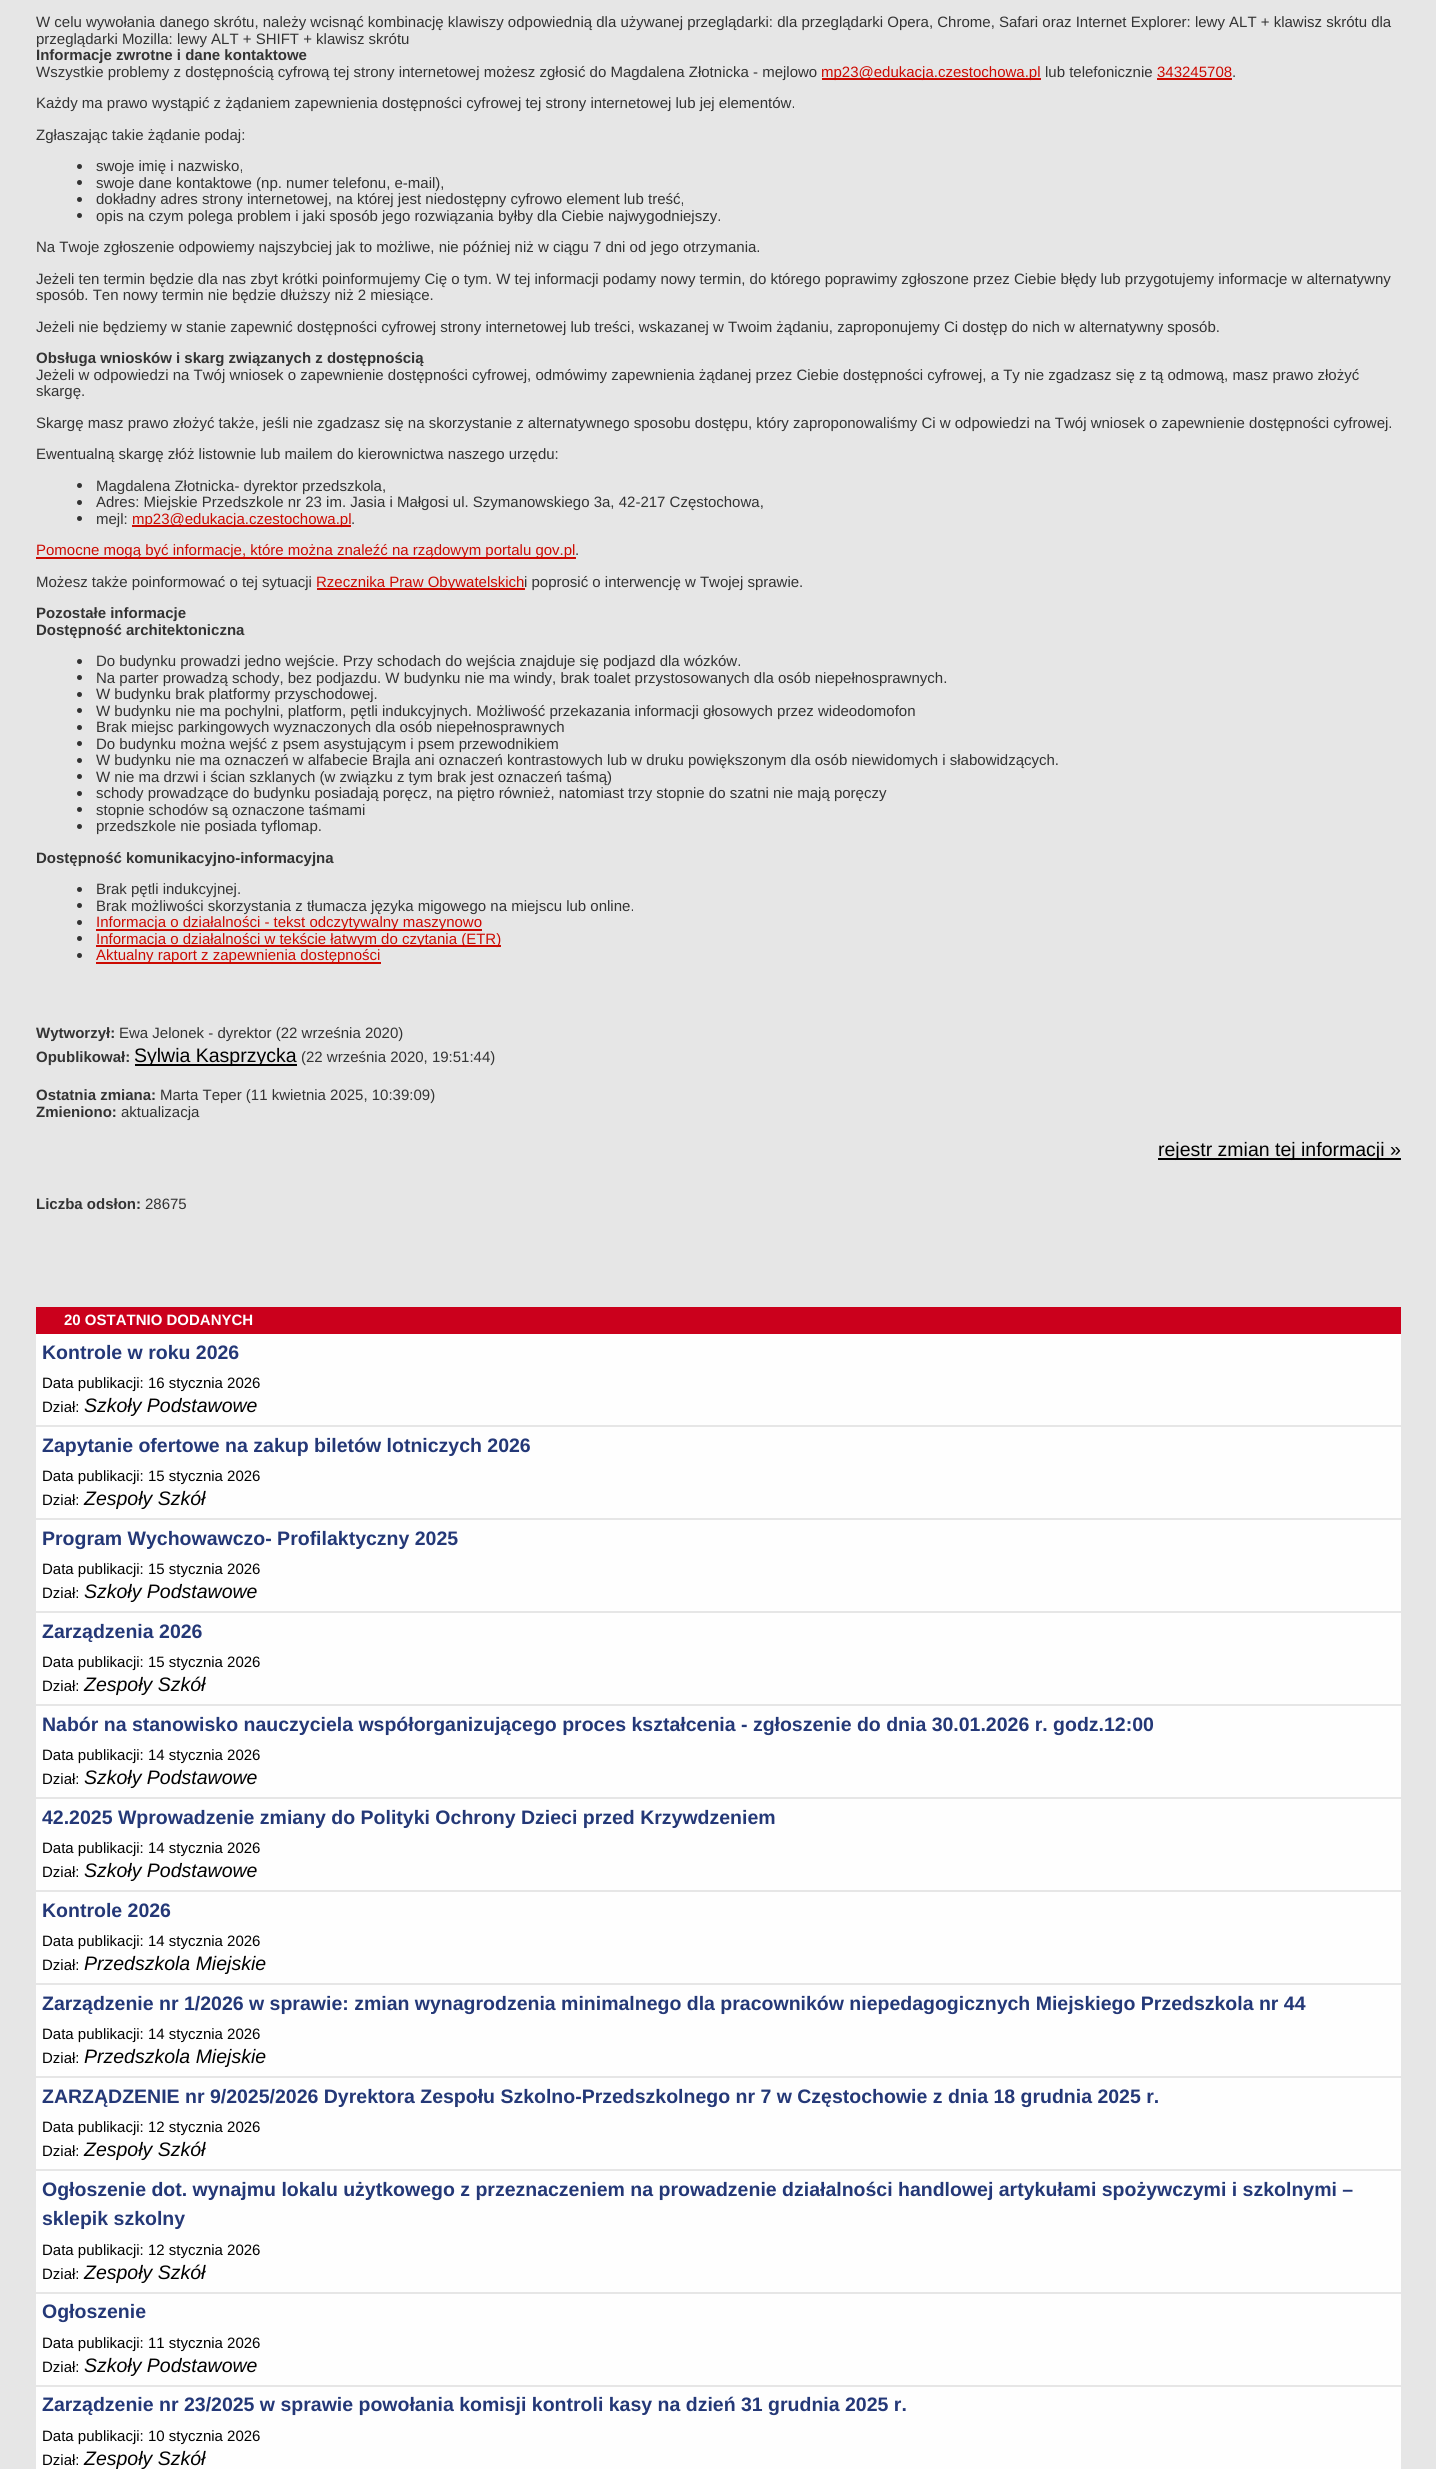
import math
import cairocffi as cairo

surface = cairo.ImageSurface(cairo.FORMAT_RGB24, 1436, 2469)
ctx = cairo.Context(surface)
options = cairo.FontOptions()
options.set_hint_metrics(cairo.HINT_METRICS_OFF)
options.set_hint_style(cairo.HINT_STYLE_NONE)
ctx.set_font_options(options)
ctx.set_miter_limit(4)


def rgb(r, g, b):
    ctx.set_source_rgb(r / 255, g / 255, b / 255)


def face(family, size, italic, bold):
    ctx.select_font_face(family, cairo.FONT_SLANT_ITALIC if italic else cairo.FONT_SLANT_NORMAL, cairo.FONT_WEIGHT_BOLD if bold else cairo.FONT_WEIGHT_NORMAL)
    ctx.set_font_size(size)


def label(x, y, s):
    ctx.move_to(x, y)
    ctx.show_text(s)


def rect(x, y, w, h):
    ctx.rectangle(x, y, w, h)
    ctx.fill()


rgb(230, 230, 230)
ctx.paint()
face('Liberation Sans', 15, 0, 0)
rgb(51, 51, 51)
label(36, 27, 'W celu wywołania danego skrótu, należy wcisnąć kombinację klawiszy odpowiednią dla używanej przeglądarki: dla przeglądarki Opera, Chrome, Safari oraz Internet Explorer: lewy ALT + klawisz skrótu dla')
label(36, 44, 'przeglądarki Mozilla: lewy ALT + SHIFT + klawisz skrótu')
face('Liberation Sans', 15, 0, 1)
label(36, 60, 'Informacje zwrotne i dane kontaktowe')
face('Liberation Sans', 15, 0, 0)
label(36, 77, 'Wszystkie problemy z dostępnością cyfrową tej strony internetowej możesz zgłosić do Magdalena Złotnicka - mejlowo')
rgb(204, 10, 1)
rect(822, 78, 219, 2)
label(821, 77, 'mp23@edukacja.czestochowa.pl')
rgb(51, 51, 51)
label(1045, 77, 'lub telefonicznie')
rgb(204, 10, 1)
label(1157, 77, '343245708')
rect(1157, 78, 75, 2)
rgb(51, 51, 51)
label(1232, 77, '.')
label(36, 108, 'Każdy ma prawo wystąpić z żądaniem zapewnienia dostępności cyfrowej tej strony internetowej lub jej elementów.')
label(36, 140, 'Zgłaszając takie żądanie podaj:')
ctx.new_path()
ctx.arc(79.5, 166.5, 2.5, 0, 2 * math.pi)
ctx.fill()
label(96, 171, 'swoje imię i nazwisko,')
ctx.new_path()
ctx.arc(79.5, 182.5, 2.5, 0, 2 * math.pi)
ctx.fill()
label(96, 188, 'swoje dane kontaktowe (np. numer telefonu, e-mail),')
ctx.new_path()
ctx.arc(79.5, 199.5, 2.5, 0, 2 * math.pi)
ctx.fill()
label(96, 204, 'dokładny adres strony internetowej, na której jest niedostępny cyfrowo element lub treść,')
ctx.new_path()
ctx.arc(79.5, 215.5, 2.5, 0, 2 * math.pi)
ctx.fill()
label(96, 221, 'opis na czym polega problem i jaki sposób jego rozwiązania byłby dla Ciebie najwygodniejszy.')
label(36, 252, 'Na Twoje zgłoszenie odpowiemy najszybciej jak to możliwe, nie później niż w ciągu 7 dni od jego otrzymania.')
label(36, 284, 'Jeżeli ten termin będzie dla nas zbyt krótki poinformujemy Cię o tym. W tej informacji podamy nowy termin, do którego poprawimy zgłoszone przez Ciebie błędy lub przygotujemy informacje w alternatywny')
label(36, 300, 'sposób. Ten nowy termin nie będzie dłuższy niż 2 miesiące.')
label(36, 332, 'Jeżeli nie będziemy w stanie zapewnić dostępności cyfrowej strony internetowej lub treści, wskazanej w Twoim żądaniu, zaproponujemy Ci dostęp do nich w alternatywny sposób.')
face('Liberation Sans', 15, 0, 1)
label(36, 363, 'Obsługa wniosków i skarg związanych z dostępnością')
face('Liberation Sans', 15, 0, 0)
label(36, 380, 'Jeżeli w odpowiedzi na Twój wniosek o zapewnienie dostępności cyfrowej, odmówimy zapewnienia żądanej przez Ciebie dostępności cyfrowej, a Ty nie zgadzasz się z tą odmową, masz prawo złożyć')
label(36, 396, 'skargę.')
label(36, 428, 'Skargę masz prawo złożyć także, jeśli nie zgadzasz się na skorzystanie z alternatywnego sposobu dostępu, który zaproponowaliśmy Ci w odpowiedzi na Twój wniosek o zapewnienie dostępności cyfrowej.')
label(36, 459, 'Ewentualną skargę złóż listownie lub mailem do kierownictwa naszego urzędu:')
ctx.new_path()
ctx.arc(79.5, 485.5, 2.5, 0, 2 * math.pi)
ctx.fill()
label(96, 491, 'Magdalena Złotnicka- dyrektor przedszkola,')
ctx.new_path()
ctx.arc(79.5, 502.5, 2.5, 0, 2 * math.pi)
ctx.fill()
label(96, 507, 'Adres: Miejskie Przedszkole nr 23 im. Jasia i Małgosi ul. Szymanowskiego 3a, 42-217 Częstochowa,')
ctx.new_path()
ctx.arc(79.5, 518.5, 2.5, 0, 2 * math.pi)
ctx.fill()
label(96, 524, 'mejl:')
rgb(204, 10, 1)
rect(132, 525, 219, 2)
label(132, 524, 'mp23@edukacja.czestochowa.pl')
rgb(51, 51, 51)
label(351, 524, '.')
rgb(204, 10, 1)
rect(36, 557, 540, 2)
label(36, 555, 'Pomocne mogą być informacje, które można znaleźć na rządowym portalu gov.pl')
rgb(51, 51, 51)
label(575, 555, '.')
label(36, 587, 'Możesz także poinformować o tej sytuacji')
rgb(204, 10, 1)
rect(317, 588, 208, 2)
label(316, 587, 'Rzecznika Praw Obywatelskich')
rgb(51, 51, 51)
label(524, 587, 'i poprosić o interwencję w Twojej sprawie.')
face('Liberation Sans', 15, 0, 1)
label(36, 618, 'Pozostałe informacje')
label(36, 635, 'Dostępność architektoniczna')
ctx.new_path()
ctx.arc(79.5, 661.5, 2.5, 0, 2 * math.pi)
ctx.fill()
face('Liberation Sans', 15, 0, 0)
label(96, 666, 'Do budynku prowadzi jedno wejście. Przy schodach do wejścia znajduje się podjazd dla wózków.')
ctx.new_path()
ctx.arc(79.5, 677.5, 2.5, 0, 2 * math.pi)
ctx.fill()
label(96, 683, 'Na parter prowadzą schody, bez podjazdu. W budynku nie ma windy, brak toalet przystosowanych dla osób niepełnosprawnych.')
ctx.new_path()
ctx.arc(79.5, 694.5, 2.5, 0, 2 * math.pi)
ctx.fill()
label(96, 699, 'W budynku brak platformy przyschodowej.')
ctx.new_path()
ctx.arc(79.5, 710.5, 2.5, 0, 2 * math.pi)
ctx.fill()
label(96, 716, 'W budynku nie ma pochylni, platform, pętli indukcyjnych. Możliwość przekazania informacji głosowych przez wideodomofon')
ctx.new_path()
ctx.arc(79.5, 727.5, 2.5, 0, 2 * math.pi)
ctx.fill()
label(96, 732, 'Brak miejsc parkingowych wyznaczonych dla osób niepełnosprawnych')
ctx.new_path()
ctx.arc(79.5, 743.5, 2.5, 0, 2 * math.pi)
ctx.fill()
label(96, 749, 'Do budynku można wejść z psem asystującym i psem przewodnikiem')
ctx.new_path()
ctx.arc(79.5, 760.5, 2.5, 0, 2 * math.pi)
ctx.fill()
label(96, 765, 'W budynku nie ma oznaczeń w alfabecie Brajla ani oznaczeń kontrastowych lub w druku powiększonym dla osób niewidomych i słabowidzących.')
ctx.new_path()
ctx.arc(79.5, 776.5, 2.5, 0, 2 * math.pi)
ctx.fill()
label(96, 782, 'W nie ma drzwi i ścian szklanych (w związku z tym brak jest oznaczeń taśmą)')
ctx.new_path()
ctx.arc(79.5, 793.5, 2.5, 0, 2 * math.pi)
ctx.fill()
label(96, 798, 'schody prowadzące do budynku posiadają poręcz, na piętro również, natomiast trzy stopnie do szatni nie mają poręczy')
ctx.new_path()
ctx.arc(79.5, 809.5, 2.5, 0, 2 * math.pi)
ctx.fill()
label(96, 815, 'stopnie schodów są oznaczone taśmami')
ctx.new_path()
ctx.arc(79.5, 826.5, 2.5, 0, 2 * math.pi)
ctx.fill()
label(96, 831, 'przedszkole nie posiada tyflomap.')
face('Liberation Sans', 15, 0, 1)
label(36, 863, 'Dostępność komunikacyjno-informacyjna')
ctx.new_path()
ctx.arc(79.5, 889.5, 2.5, 0, 2 * math.pi)
ctx.fill()
face('Liberation Sans', 15, 0, 0)
label(96, 894, 'Brak pętli indukcyjnej.')
ctx.new_path()
ctx.arc(79.5, 905.5, 2.5, 0, 2 * math.pi)
ctx.fill()
label(96, 911, 'Brak możliwości skorzystania z tłumacza języka migowego na miejscu lub online.')
ctx.new_path()
ctx.arc(79.5, 922.5, 2.5, 0, 2 * math.pi)
ctx.fill()
rgb(204, 10, 1)
rect(96, 929, 386, 2)
label(96, 927, 'Informacja o działalności - tekst odczytywalny maszynowo')
rgb(51, 51, 51)
ctx.new_path()
ctx.arc(79.5, 938.5, 2.5, 0, 2 * math.pi)
ctx.fill()
rgb(204, 10, 1)
rect(96, 945, 405, 2)
label(96, 944, 'Informacja o działalności w tekście łatwym do czytania (ETR)')
rgb(51, 51, 51)
ctx.new_path()
ctx.arc(79.5, 955.5, 2.5, 0, 2 * math.pi)
ctx.fill()
rgb(204, 10, 1)
rect(96, 962, 285, 2)
label(96, 960, 'Aktualny raport z zapewnienia dostępności')
face('Liberation Sans', 15, 0, 1)
rgb(51, 51, 51)
label(36, 1038, 'Wytworzył:')
face('Liberation Sans', 15, 0, 0)
label(119, 1038, 'Ewa Jelonek - dyrektor (22 września 2020)')
face('Liberation Sans', 15, 0, 1)
label(36, 1062, 'Opublikował:')
rgb(0, 0, 0)
rect(135, 1064, 162, 2)
face('Liberation Sans', 19.5, 0, 0)
label(134, 1062, 'Sylwia Kasprzycka')
face('Liberation Sans', 15, 0, 0)
rgb(51, 51, 51)
label(301, 1062, '(22 września 2020, 19:51:44)')
face('Liberation Sans', 15, 0, 1)
label(36, 1100, 'Ostatnia zmiana:')
face('Liberation Sans', 15, 0, 0)
label(160, 1100, 'Marta Teper (11 kwietnia 2025, 10:39:09)')
face('Liberation Sans', 15, 0, 1)
label(36, 1117, 'Zmieniono:')
face('Liberation Sans', 15, 0, 0)
label(121, 1117, 'aktualizacja')
rgb(0, 0, 0)
rect(1158, 1158, 243, 2)
face('Liberation Sans', 19.5, 0, 0)
label(1158, 1156, 'rejestr zmian tej informacji »')
face('Liberation Sans', 15, 0, 1)
rgb(51, 51, 51)
label(36, 1209, 'Liczba odsłon:')
face('Liberation Sans', 15, 0, 0)
label(145, 1209, '28675')
rgb(203, 0, 28)
rect(36, 1307, 1365, 27)
face('Liberation Sans', 15, 0, 1)
rgb(255, 255, 255)
label(64, 1325, '20 OSTATNIO DODANYCH')
rgb(254, 254, 254)
rect(36, 1334, 1365, 91)
face('Liberation Sans', 19.5, 0, 1)
rgb(36, 56, 119)
label(42, 1359, 'Kontrole w roku 2026')
face('Liberation Sans', 15, 0, 0)
rgb(0, 0, 0)
label(42, 1388, 'Data publikacji: 16 stycznia 2026')
label(42, 1412, 'Dział:')
face('Liberation Sans', 19.5, 1, 0)
label(84, 1412, 'Szkoły Podstawowe')
rgb(254, 254, 254)
rect(36, 1427, 1365, 91)
face('Liberation Sans', 19.5, 0, 1)
rgb(36, 56, 119)
label(42, 1452, 'Zapytanie ofertowe na zakup biletów lotniczych 2026')
face('Liberation Sans', 15, 0, 0)
rgb(0, 0, 0)
label(42, 1481, 'Data publikacji: 15 stycznia 2026')
label(42, 1505, 'Dział:')
face('Liberation Sans', 19.5, 1, 0)
label(84, 1505, 'Zespoły Szkół')
rgb(254, 254, 254)
rect(36, 1520, 1365, 91)
face('Liberation Sans', 19.5, 0, 1)
rgb(36, 56, 119)
label(42, 1545, 'Program Wychowawczo- Profilaktyczny 2025')
face('Liberation Sans', 15, 0, 0)
rgb(0, 0, 0)
label(42, 1574, 'Data publikacji: 15 stycznia 2026')
label(42, 1598, 'Dział:')
face('Liberation Sans', 19.5, 1, 0)
label(84, 1598, 'Szkoły Podstawowe')
rgb(254, 254, 254)
rect(36, 1613, 1365, 91)
face('Liberation Sans', 19.5, 0, 1)
rgb(36, 56, 119)
label(42, 1638, 'Zarządzenia 2026')
face('Liberation Sans', 15, 0, 0)
rgb(0, 0, 0)
label(42, 1667, 'Data publikacji: 15 stycznia 2026')
label(42, 1691, 'Dział:')
face('Liberation Sans', 19.5, 1, 0)
label(84, 1691, 'Zespoły Szkół')
rgb(254, 254, 254)
rect(36, 1706, 1365, 91)
face('Liberation Sans', 19.5, 0, 1)
rgb(36, 56, 119)
label(42, 1731, 'Nabór na stanowisko nauczyciela współorganizującego proces kształcenia - zgłoszenie do dnia 30.01.2026 r. godz.12:00')
face('Liberation Sans', 15, 0, 0)
rgb(0, 0, 0)
label(42, 1760, 'Data publikacji: 14 stycznia 2026')
label(42, 1784, 'Dział:')
face('Liberation Sans', 19.5, 1, 0)
label(84, 1784, 'Szkoły Podstawowe')
rgb(254, 254, 254)
rect(36, 1799, 1365, 91)
face('Liberation Sans', 19.5, 0, 1)
rgb(36, 56, 119)
label(42, 1824, '42.2025 Wprowadzenie zmiany do Polityki Ochrony Dzieci przed Krzywdzeniem')
face('Liberation Sans', 15, 0, 0)
rgb(0, 0, 0)
label(42, 1853, 'Data publikacji: 14 stycznia 2026')
label(42, 1877, 'Dział:')
face('Liberation Sans', 19.5, 1, 0)
label(84, 1877, 'Szkoły Podstawowe')
rgb(254, 254, 254)
rect(36, 1892, 1365, 91)
face('Liberation Sans', 19.5, 0, 1)
rgb(36, 56, 119)
label(42, 1917, 'Kontrole 2026')
face('Liberation Sans', 15, 0, 0)
rgb(0, 0, 0)
label(42, 1946, 'Data publikacji: 14 stycznia 2026')
label(42, 1970, 'Dział:')
face('Liberation Sans', 19.5, 1, 0)
label(84, 1970, 'Przedszkola Miejskie')
rgb(254, 254, 254)
rect(36, 1985, 1365, 91)
face('Liberation Sans', 19.5, 0, 1)
rgb(36, 56, 119)
label(42, 2010, 'Zarządzenie nr 1/2026 w sprawie: zmian wynagrodzenia minimalnego dla pracowników niepedagogicznych Miejskiego Przedszkola nr 44')
face('Liberation Sans', 15, 0, 0)
rgb(0, 0, 0)
label(42, 2039, 'Data publikacji: 14 stycznia 2026')
label(42, 2063, 'Dział:')
face('Liberation Sans', 19.5, 1, 0)
label(84, 2063, 'Przedszkola Miejskie')
rgb(254, 254, 254)
rect(36, 2078, 1365, 91)
face('Liberation Sans', 19.5, 0, 1)
rgb(36, 56, 119)
label(42, 2103, 'ZARZĄDZENIE nr 9/2025/2026 Dyrektora Zespołu Szkolno-Przedszkolnego nr 7 w Częstochowie z dnia 18 grudnia 2025 r.')
face('Liberation Sans', 15, 0, 0)
rgb(0, 0, 0)
label(42, 2132, 'Data publikacji: 12 stycznia 2026')
label(42, 2156, 'Dział:')
face('Liberation Sans', 19.5, 1, 0)
label(84, 2156, 'Zespoły Szkół')
rgb(254, 254, 254)
rect(36, 2171, 1365, 121)
face('Liberation Sans', 19.5, 0, 1)
rgb(36, 56, 119)
label(42, 2196, 'Ogłoszenie dot. wynajmu lokalu użytkowego z przeznaczeniem na prowadzenie działalności handlowej artykułami spożywczymi i szkolnymi –')
label(42, 2225, 'sklepik szkolny')
face('Liberation Sans', 15, 0, 0)
rgb(0, 0, 0)
label(42, 2255, 'Data publikacji: 12 stycznia 2026')
label(42, 2279, 'Dział:')
face('Liberation Sans', 19.5, 1, 0)
label(84, 2279, 'Zespoły Szkół')
rgb(254, 254, 254)
rect(36, 2294, 1365, 91)
face('Liberation Sans', 19.5, 0, 1)
rgb(36, 56, 119)
label(42, 2318, 'Ogłoszenie')
face('Liberation Sans', 15, 0, 0)
rgb(0, 0, 0)
label(42, 2348, 'Data publikacji: 11 stycznia 2026')
label(42, 2372, 'Dział:')
face('Liberation Sans', 19.5, 1, 0)
label(84, 2372, 'Szkoły Podstawowe')
rgb(254, 254, 254)
rect(36, 2387, 1365, 82)
face('Liberation Sans', 19.5, 0, 1)
rgb(36, 56, 119)
label(42, 2411, 'Zarządzenie nr 23/2025 w sprawie powołania komisji kontroli kasy na dzień 31 grudnia 2025 r.')
face('Liberation Sans', 15, 0, 0)
rgb(0, 0, 0)
label(42, 2441, 'Data publikacji: 10 stycznia 2026')
label(42, 2465, 'Dział:')
face('Liberation Sans', 19.5, 1, 0)
label(84, 2465, 'Zespoły Szkół')
surface.write_to_png('render.png')
